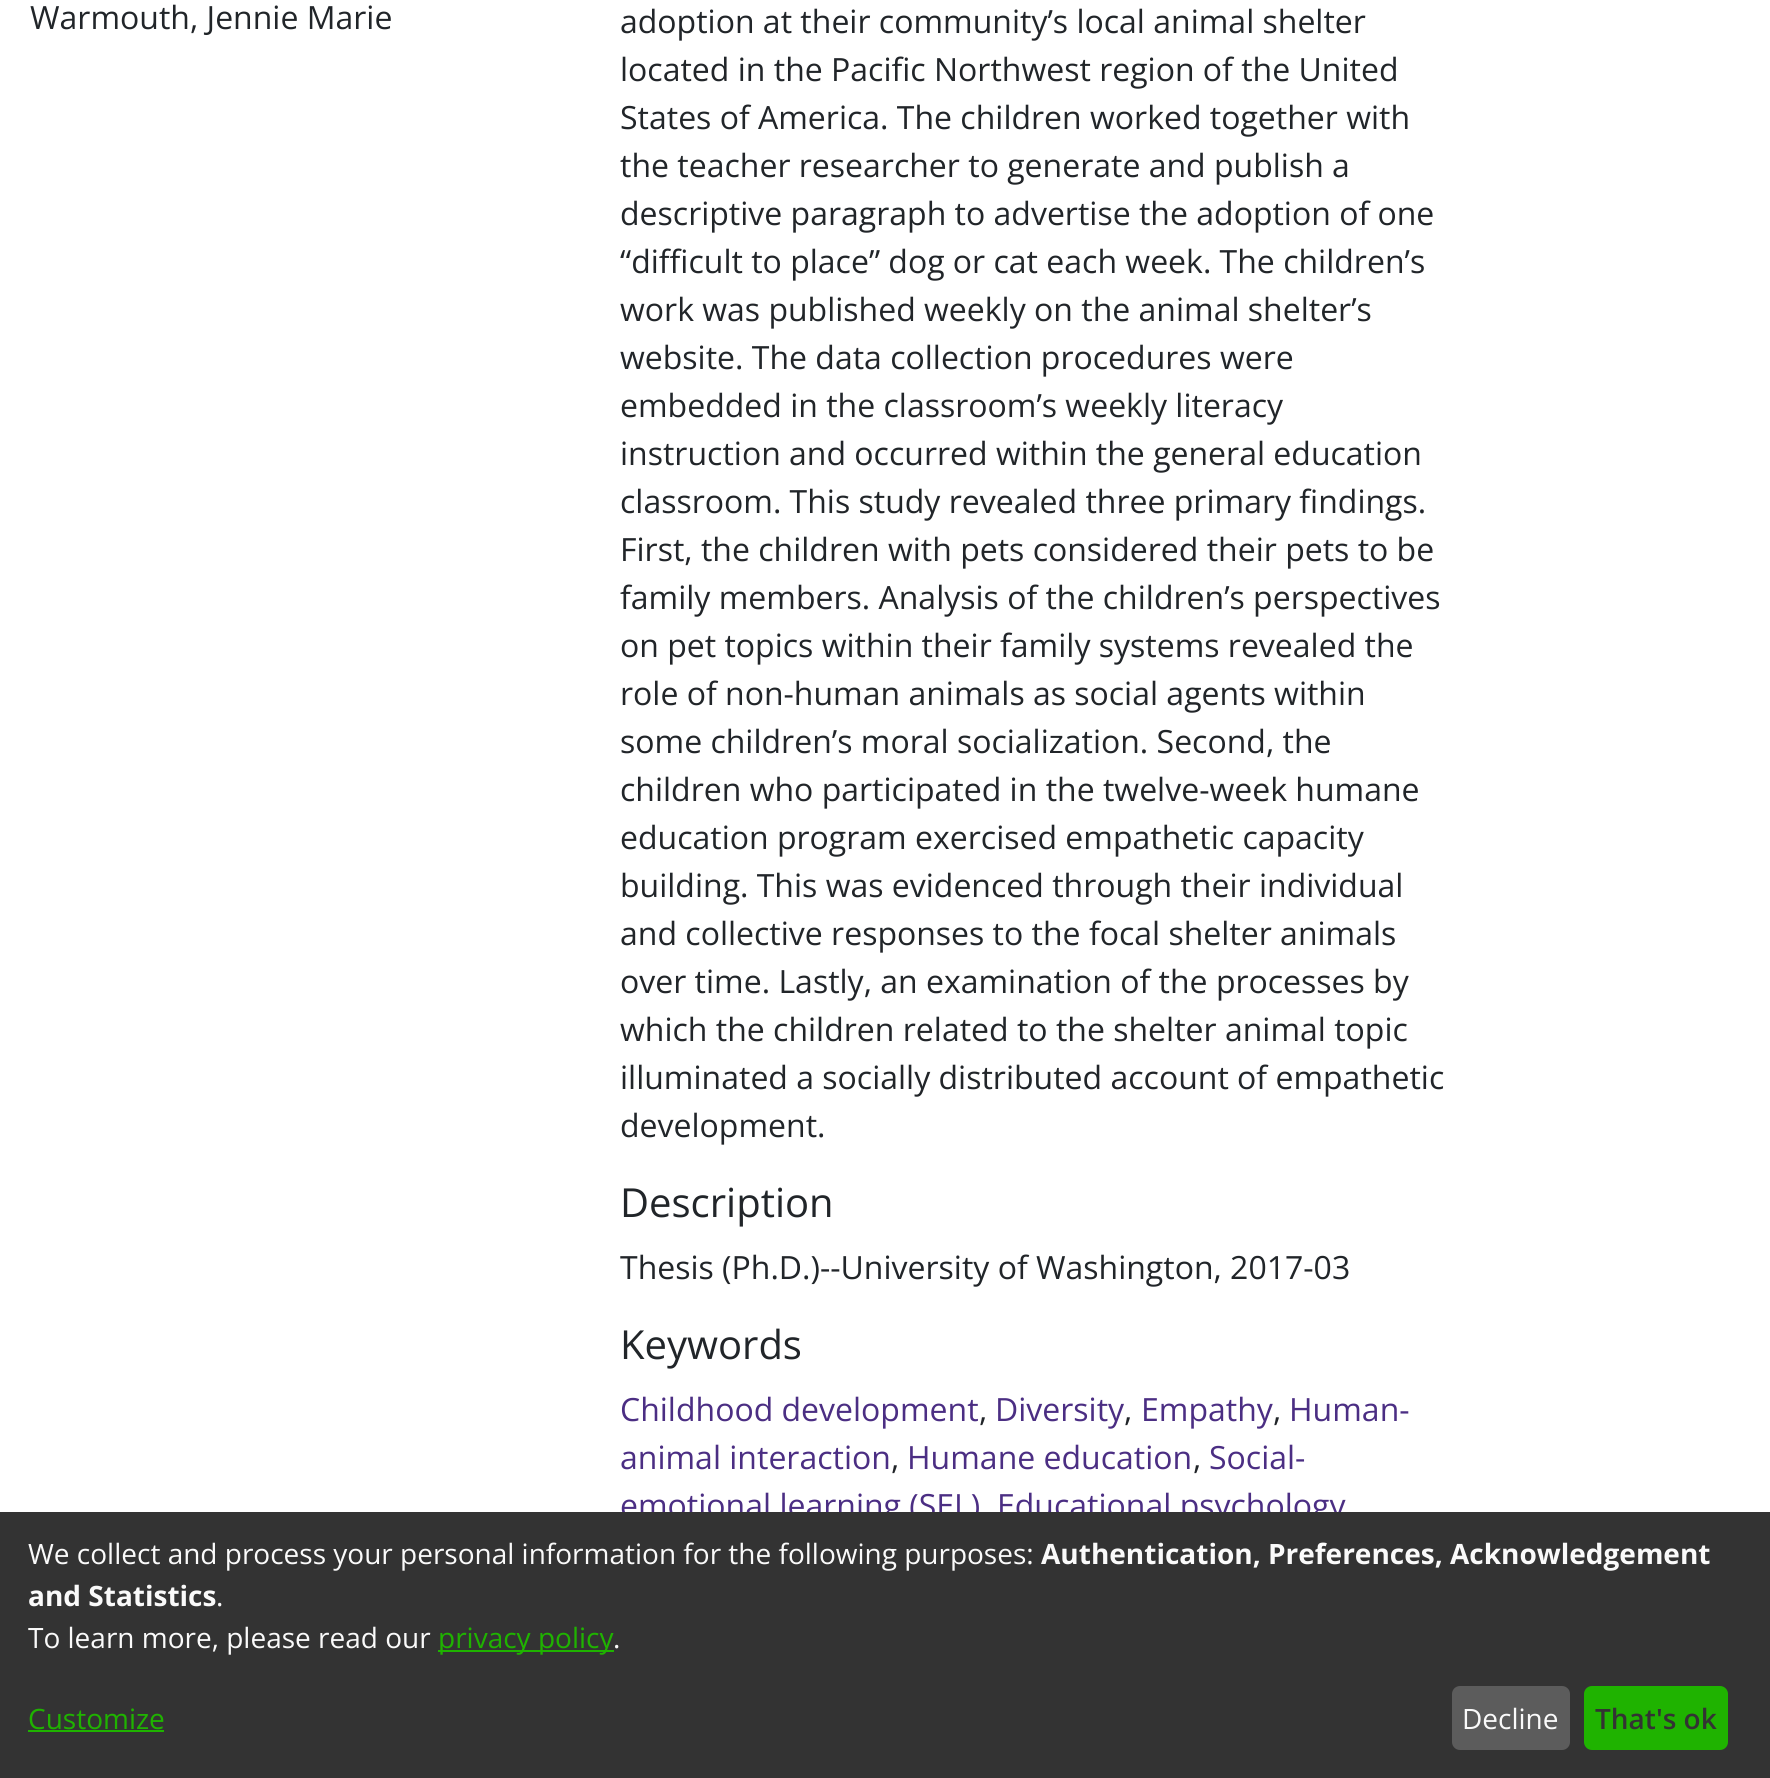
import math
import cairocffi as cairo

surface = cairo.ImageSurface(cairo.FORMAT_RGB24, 1770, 1778)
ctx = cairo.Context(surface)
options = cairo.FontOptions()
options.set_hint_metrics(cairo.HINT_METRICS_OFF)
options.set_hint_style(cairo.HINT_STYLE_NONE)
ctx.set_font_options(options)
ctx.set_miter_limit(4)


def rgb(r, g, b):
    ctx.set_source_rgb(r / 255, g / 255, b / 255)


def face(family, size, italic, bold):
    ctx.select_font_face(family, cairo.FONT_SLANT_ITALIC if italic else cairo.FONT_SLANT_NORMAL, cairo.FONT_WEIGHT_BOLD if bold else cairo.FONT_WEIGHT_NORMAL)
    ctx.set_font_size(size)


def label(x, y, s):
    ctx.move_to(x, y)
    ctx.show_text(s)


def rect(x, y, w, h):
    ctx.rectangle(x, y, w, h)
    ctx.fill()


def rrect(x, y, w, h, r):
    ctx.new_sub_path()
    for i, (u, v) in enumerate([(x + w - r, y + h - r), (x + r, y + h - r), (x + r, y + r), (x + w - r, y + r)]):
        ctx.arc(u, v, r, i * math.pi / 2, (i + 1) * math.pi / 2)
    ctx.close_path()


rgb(255, 255, 255)
ctx.paint()
face('Open Sans', 32, 0, 0)
rgb(33, 37, 41)
label(30, 29, 'Warmouth, Jennie Marie')
label(620, 33, 'adoption at their community’s local animal shelter')
label(620, 81, 'located in the Pacific Northwest region of the United')
label(620, 129, 'States of America. The children worked together with')
label(620, 177, 'the teacher researcher to generate and publish a')
label(620, 225, 'descriptive paragraph to advertise the adoption of one')
label(620, 273, '“difficult to place” dog or cat each week. The children’s')
label(620, 321, 'work was published weekly on the animal shelter’s')
label(620, 369, 'website. The data collection procedures were')
label(620, 417, 'embedded in the classroom’s weekly literacy')
label(620, 465, 'instruction and occurred within the general education')
label(620, 513, 'classroom. This study revealed three primary findings.')
label(620, 561, 'First, the children with pets considered their pets to be')
label(620, 609, 'family members. Analysis of the children’s perspectives')
label(620, 657, 'on pet topics within their family systems revealed the')
label(620, 705, 'role of non-human animals as social agents within')
label(620, 753, 'some children’s moral socialization. Second, the')
label(620, 801, 'children who participated in the twelve-week humane')
label(620, 849, 'education program exercised empathetic capacity')
label(620, 897, 'building. This was evidenced through their individual')
label(620, 945, 'and collective responses to the focal shelter animals')
label(620, 993, 'over time. Lastly, an examination of the processes by')
label(620, 1041, 'which the children related to the shelter animal topic')
label(620, 1089, 'illuminated a socially distributed account of empathetic')
label(620, 1137, 'development.')
face('Open Sans', 40, 0, 0)
label(620, 1217, 'Description')
face('Open Sans', 32, 0, 0)
label(620, 1279, 'Thesis (Ph.D.)--University of Washington, 2017-03')
face('Open Sans', 40, 0, 0)
label(620, 1359, 'Keywords')
face('Open Sans', 32, 0, 0)
rgb(75, 46, 131)
label(620, 1421, 'Childhood development')
rgb(33, 37, 41)
label(979, 1421, ',')
rgb(75, 46, 131)
label(995, 1421, 'Diversity')
rgb(33, 37, 41)
label(1124, 1421, ',')
rgb(75, 46, 131)
label(1141, 1421, 'Empathy')
rgb(33, 37, 41)
label(1273, 1421, ',')
rgb(75, 46, 131)
label(1289, 1421, 'Human-')
label(620, 1469, 'animal interaction')
rgb(33, 37, 41)
label(891, 1469, ',')
rgb(75, 46, 131)
label(907, 1469, 'Humane education')
rgb(33, 37, 41)
label(1193, 1469, ',')
rgb(75, 46, 131)
label(1209, 1469, 'Social-')
label(620, 1517, 'emotional learning (SEL)')
label(997, 1517, 'Educational psychology')
rgb(51, 51, 51)
rect(0, 1512, 1770, 266)
face('Open Sans', 28, 0, 0)
rgb(250, 250, 250)
label(28, 1564, 'We collect and process your personal information for the following purposes:')
face('Open Sans', 28, 0, 1)
label(1041, 1564, 'Authentication, Preferences, Acknowledgement')
label(28, 1606, 'and Statistics')
face('Open Sans', 28, 0, 0)
label(216, 1606, '.')
label(28, 1648, 'To learn more, please read our')
rgb(31, 179, 0)
rect(438, 1650, 176, 2)
label(438, 1648, 'privacy policy')
rgb(250, 250, 250)
label(613, 1648, '.')
rgb(31, 179, 0)
label(28, 1729, 'Customize')
rect(28, 1730, 136, 2)
rgb(92, 92, 92)
rrect(1452, 1686, 118, 64, 8)
ctx.fill()
rgb(250, 250, 250)
label(1462, 1729, 'Decline')
rgb(31, 179, 0)
rrect(1584, 1686, 144, 64, 8)
ctx.fill()
face('Open Sans SemiBold', 28, 0, 0)
rgb(51, 51, 51)
label(1595, 1729, 'That\'s ok')
surface.write_to_png('render.png')
